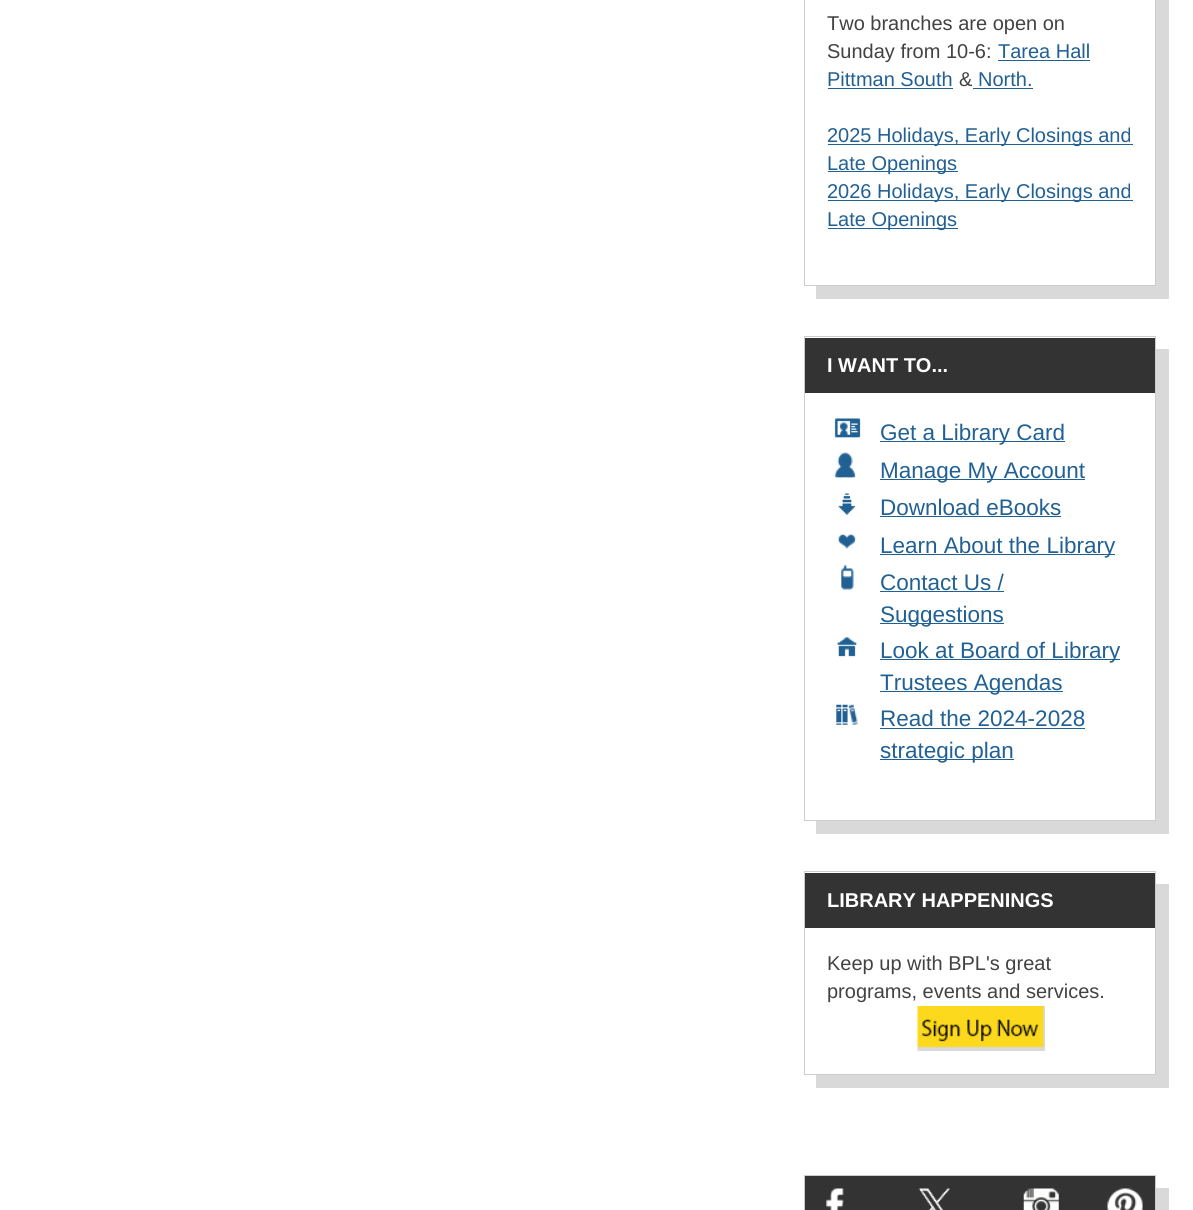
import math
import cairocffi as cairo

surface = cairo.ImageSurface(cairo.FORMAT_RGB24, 1193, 1210)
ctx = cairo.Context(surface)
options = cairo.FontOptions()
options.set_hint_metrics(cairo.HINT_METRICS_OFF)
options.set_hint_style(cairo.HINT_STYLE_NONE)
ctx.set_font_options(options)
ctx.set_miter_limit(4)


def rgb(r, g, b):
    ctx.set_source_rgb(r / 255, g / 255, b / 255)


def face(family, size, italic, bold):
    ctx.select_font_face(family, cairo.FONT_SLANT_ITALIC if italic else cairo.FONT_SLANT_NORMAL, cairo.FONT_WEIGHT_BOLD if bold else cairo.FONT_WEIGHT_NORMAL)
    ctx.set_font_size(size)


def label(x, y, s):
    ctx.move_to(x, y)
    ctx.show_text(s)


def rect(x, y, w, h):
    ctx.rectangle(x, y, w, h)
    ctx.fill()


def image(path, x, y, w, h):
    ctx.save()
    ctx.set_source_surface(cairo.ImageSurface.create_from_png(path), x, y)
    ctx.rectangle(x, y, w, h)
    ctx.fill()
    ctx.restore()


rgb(255, 255, 255)
ctx.paint()
rgb(217, 217, 217)
ctx.new_path()
ctx.move_to(816, 286)
ctx.line_to(816, 299)
ctx.line_to(1169, 299)
ctx.line_to(1169, -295)
ctx.line_to(1156, -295)
ctx.line_to(1156, 286)
ctx.close_path()
ctx.fill()
ctx.rectangle(804.5, -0.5, 351, 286)
rgb(204, 204, 204)
ctx.set_line_width(1)
ctx.stroke()
face('Liberation Sans', 20, 0, 0)
rgb(66, 66, 66)
label(827, 30, 'Two branches are open on')
label(827, 58, 'Sunday from 10-6:')
rgb(33, 96, 147)
label(998, 58, 'Tarea Hall')
rect(998, 60, 92, 1)
label(827, 86, 'Pittman South')
rect(828, 88, 125, 1)
rgb(66, 66, 66)
label(959, 86, '&')
rgb(33, 96, 147)
label(978, 86, 'North.')
rect(973, 88, 60, 1)
rect(828, 144, 305, 1)
label(827, 142, '2025 Holidays, Early Closings and')
rect(828, 171, 130, 1)
label(827, 170, 'Late Openings')
rect(828, 200, 305, 1)
label(827, 198, '2026 Holidays, Early Closings and')
rect(828, 228, 130, 1)
label(827, 226, 'Late Openings')
rgb(217, 217, 217)
ctx.new_path()
ctx.move_to(816, 821)
ctx.line_to(816, 834)
ctx.line_to(1169, 834)
ctx.line_to(1169, 349)
ctx.line_to(1156, 349)
ctx.line_to(1156, 821)
ctx.close_path()
ctx.fill()
ctx.rectangle(804.5, 336.5, 351, 484)
rgb(204, 204, 204)
ctx.stroke()
rgb(51, 51, 51)
rect(805, 338, 350, 55)
face('Liberation Sans', 20, 0, 1)
rgb(255, 255, 255)
label(827, 372, 'I WANT TO...')
image('image0.png', 834, 418, 27, 20)
rgb(33, 96, 147)
rect(880, 441, 185, 1)
face('Liberation Sans', 22.5, 0, 0)
label(880, 440, 'Get a Library Card')
image('image1.png', 832, 452, 24, 27)
rect(880, 479, 205, 1)
label(880, 478, 'Manage My Account')
image('image2.png', 838, 493, 18, 22)
label(880, 515, 'Download eBooks')
rect(880, 516, 181, 1)
image('image3.png', 838, 534, 18, 15)
rect(880, 554, 235, 1)
label(880, 553, 'Learn About the Library')
image('image4.png', 841, 564, 13, 26)
label(880, 590, 'Contact Us /')
rect(880, 591, 124, 1)
rect(880, 623, 124, 1)
label(880, 622, 'Suggestions')
image('image5.png', 837, 637, 20, 20)
rect(880, 659, 240, 1)
label(880, 658, 'Look at Board of Library')
rect(880, 691, 183, 1)
label(880, 690, 'Trustees Agendas')
image('image6.png', 836, 704, 22, 21)
label(880, 726, 'Read the 2024-2028')
rect(880, 728, 205, 1)
rect(880, 759, 134, 1)
label(880, 758, 'strategic plan')
rgb(217, 217, 217)
ctx.new_path()
ctx.move_to(816, 1075)
ctx.line_to(816, 1088)
ctx.line_to(1169, 1088)
ctx.line_to(1169, 884)
ctx.line_to(1156, 884)
ctx.line_to(1156, 1075)
ctx.close_path()
ctx.fill()
ctx.rectangle(804.5, 871.5, 351, 203)
rgb(204, 204, 204)
ctx.stroke()
rgb(51, 51, 51)
rect(805, 873, 350, 55)
face('Liberation Sans', 20, 0, 1)
rgb(255, 255, 255)
label(827, 907, 'LIBRARY HAPPENINGS')
face('Liberation Sans', 20, 0, 0)
rgb(66, 66, 66)
label(827, 970, 'Keep up with BPL\'s great')
label(827, 998, 'programs, events and services.')
image('image7.png', 917, 1006, 128, 45)
rgb(217, 217, 217)
ctx.new_path()
ctx.move_to(816, 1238)
ctx.line_to(816, 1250)
ctx.line_to(1169, 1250)
ctx.line_to(1169, 1188)
ctx.line_to(1156, 1188)
ctx.line_to(1156, 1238)
ctx.close_path()
ctx.fill()
ctx.rectangle(804.5, 1175.5, 351, 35)
rgb(204, 204, 204)
ctx.stroke()
rgb(51, 51, 51)
rect(805, 1176, 350, 34)
image('image8.png', 826, 1188, 18, 22)
image('image9.png', 918, 1188, 33, 22)
image('image10.png', 1023, 1188, 36, 22)
image('image11.png', 1107, 1188, 36, 22)
surface.write_to_png('render.png')
